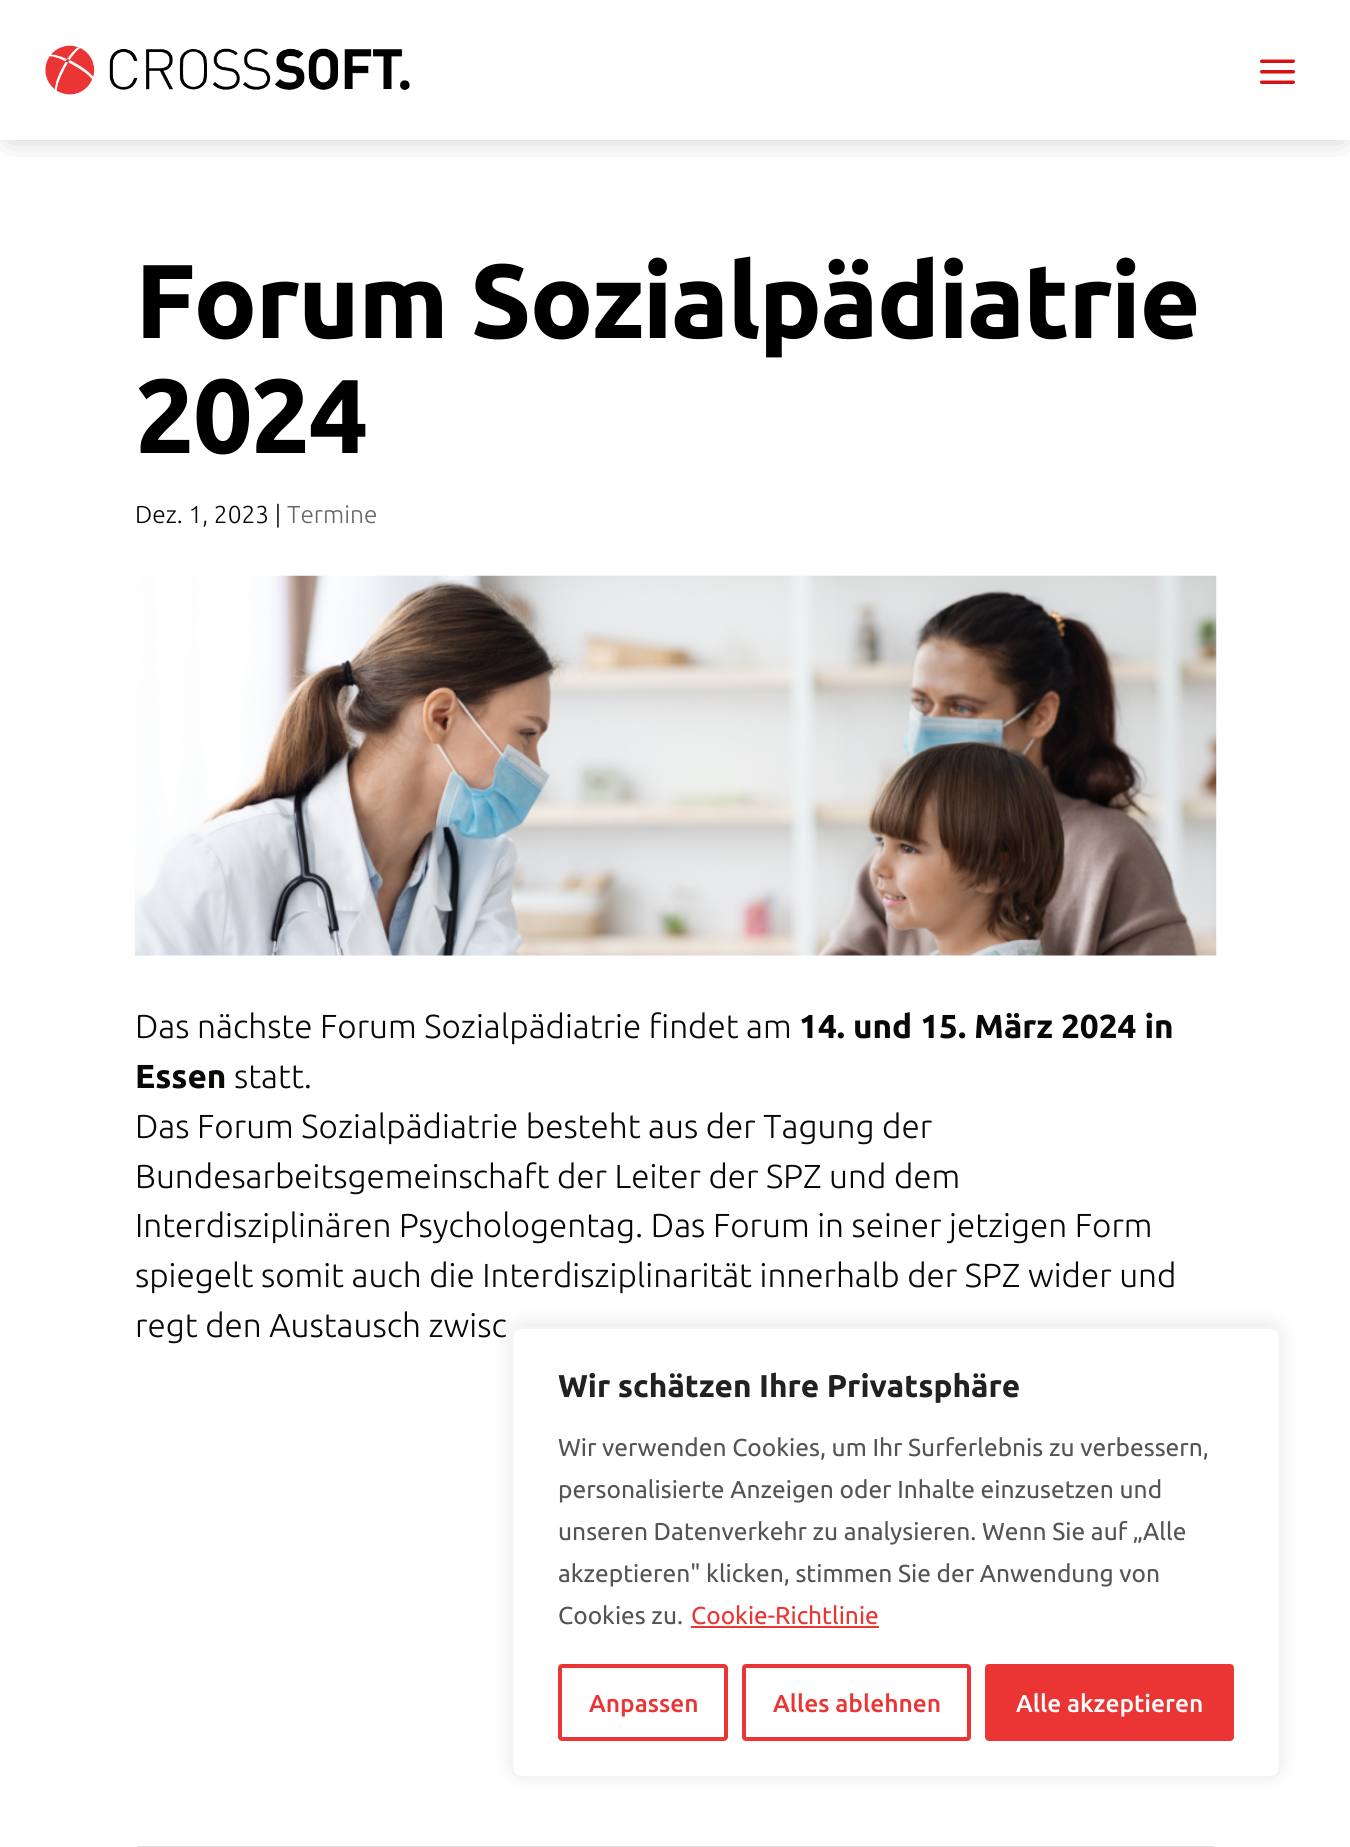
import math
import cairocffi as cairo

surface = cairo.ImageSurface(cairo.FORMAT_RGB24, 1350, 1847)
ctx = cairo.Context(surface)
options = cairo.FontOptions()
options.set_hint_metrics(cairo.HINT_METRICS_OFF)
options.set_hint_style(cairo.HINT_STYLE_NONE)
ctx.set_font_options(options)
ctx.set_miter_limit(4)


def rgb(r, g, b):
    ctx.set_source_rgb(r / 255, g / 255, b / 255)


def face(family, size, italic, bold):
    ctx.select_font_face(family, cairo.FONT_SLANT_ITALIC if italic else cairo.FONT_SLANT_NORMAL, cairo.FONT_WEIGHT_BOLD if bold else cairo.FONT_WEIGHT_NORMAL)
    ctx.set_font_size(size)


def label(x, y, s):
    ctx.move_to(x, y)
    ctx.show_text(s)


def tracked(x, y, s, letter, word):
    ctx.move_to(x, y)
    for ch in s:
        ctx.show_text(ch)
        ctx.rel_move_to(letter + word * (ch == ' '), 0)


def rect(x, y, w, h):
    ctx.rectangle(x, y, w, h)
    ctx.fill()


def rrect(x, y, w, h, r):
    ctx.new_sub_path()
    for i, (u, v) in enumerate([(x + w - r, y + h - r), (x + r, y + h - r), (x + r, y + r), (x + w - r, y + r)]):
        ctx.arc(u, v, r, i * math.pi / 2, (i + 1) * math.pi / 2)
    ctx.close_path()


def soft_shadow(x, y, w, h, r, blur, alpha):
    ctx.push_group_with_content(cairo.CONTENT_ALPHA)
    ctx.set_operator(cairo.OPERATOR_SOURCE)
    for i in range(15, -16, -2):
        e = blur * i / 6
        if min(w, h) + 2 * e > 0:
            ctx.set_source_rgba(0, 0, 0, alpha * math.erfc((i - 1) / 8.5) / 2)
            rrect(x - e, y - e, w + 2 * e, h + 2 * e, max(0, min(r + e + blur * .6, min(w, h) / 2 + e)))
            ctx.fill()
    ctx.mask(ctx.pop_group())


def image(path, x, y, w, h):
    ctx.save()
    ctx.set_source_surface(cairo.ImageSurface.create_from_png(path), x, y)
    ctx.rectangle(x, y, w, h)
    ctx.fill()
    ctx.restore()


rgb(255, 255, 255)
ctx.paint()
ctx.save()
ctx.rectangle(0, 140, 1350, 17)
ctx.clip()
rgb(0, 0, 0)
soft_shadow(11, 14, 1330, 119, 0, 16, 0.3)
ctx.restore()
image('image0.png', 45, 45, 365, 50)
image('image1.png', 1260, 59, 35, 25)
face('Ubuntu', 105, 0, 1)
rgb(0, 0, 0)
tracked(135, 338, 'Forum Sozialpädiatrie', -1.75, 0)
tracked(135, 453, '2024', -1.75, 0)
face('Ubuntu Light', 24.5, 0, 0)
rgb(10, 7, 7)
label(135, 523, 'Dez. 1, 2023 |')
rgb(102, 102, 102)
label(287, 523, 'Termine')
image('image2.png', 134, 575, 1083, 381)
face('Ubuntu Light', 33.25, 0, 0)
rgb(10, 7, 7)
label(135, 1038, 'Das nächste Forum Sozialpädiatrie findet am')
face('Ubuntu', 33.25, 0, 1)
label(799, 1038, '14. und 15. März 2024 in')
label(135, 1088, 'Essen')
face('Ubuntu Light', 33.25, 0, 0)
label(234, 1088, 'statt.')
label(135, 1138, 'Das Forum Sozialpädiatrie besteht aus der Tagung der')
label(135, 1188, 'Bundesarbeitsgemeinschaft der Leiter der SPZ und dem')
label(135, 1237, 'Interdisziplinären Psychologentag. Das Forum in seiner jetzigen Form')
label(135, 1287, 'spiegelt somit auch die Interdisziplinarität innerhalb der SPZ wider und')
label(135, 1337, 'regt den Austausch zwisc')
rrect(136, 1847, 1079, 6, 4)
rgb(221, 221, 221)
ctx.stroke()
ctx.new_path()
ctx.move_to(1100, 1847)
ctx.line_to(1211, 1847)
ctx.curve_to(1213, 1847, 1215, 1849, 1215, 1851)
ctx.line_to(1215, 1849)
ctx.curve_to(1215, 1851, 1213, 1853, 1211, 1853)
ctx.line_to(1100, 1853)
ctx.close_path()
ctx.stroke()
rgb(172, 171, 171)
soft_shadow(511, 1325, 770, 451, 11, 9, 0.3)
rgb(255, 255, 255)
rrect(512, 1328, 768, 449, 10)
ctx.fill_preserve()
rgb(244, 244, 244)
ctx.stroke()
face('Ubuntu', 31.5, 0, 1)
rgb(33, 33, 33)
label(558, 1397, 'Wir schätzen Ihre Privatsphäre')
face('Ubuntu', 24.5, 0, 0)
rgb(84, 84, 84)
label(558, 1456, 'Wir verwenden Cookies, um Ihr Surferlebnis zu verbessern,')
label(558, 1498, 'personalisierte Anzeigen oder Inhalte einzusetzen und')
label(558, 1540, 'unseren Datenverkehr zu analysieren. Wenn Sie auf „Alle')
label(558, 1582, 'akzeptieren" klicken, stimmen Sie der Anwendung von')
label(558, 1624, 'Cookies zu.')
rgb(235, 52, 52)
label(691, 1624, 'Cookie-Richtlinie')
rect(691, 1626, 188, 2)
rrect(560, 1666, 166, 73, 2)
ctx.set_line_width(4)
ctx.stroke()
face('Ubuntu Medium', 24.5, 0, 0)
label(589, 1712, 'Anpassen')
rrect(744, 1666, 225, 73, 2)
ctx.stroke()
label(773, 1712, 'Alles ablehnen')
rrect(987, 1666, 245, 73, 2)
ctx.fill_preserve()
ctx.stroke()
rgb(255, 255, 255)
label(1016, 1712, 'Alle akzeptieren')
surface.write_to_png('render.png')
